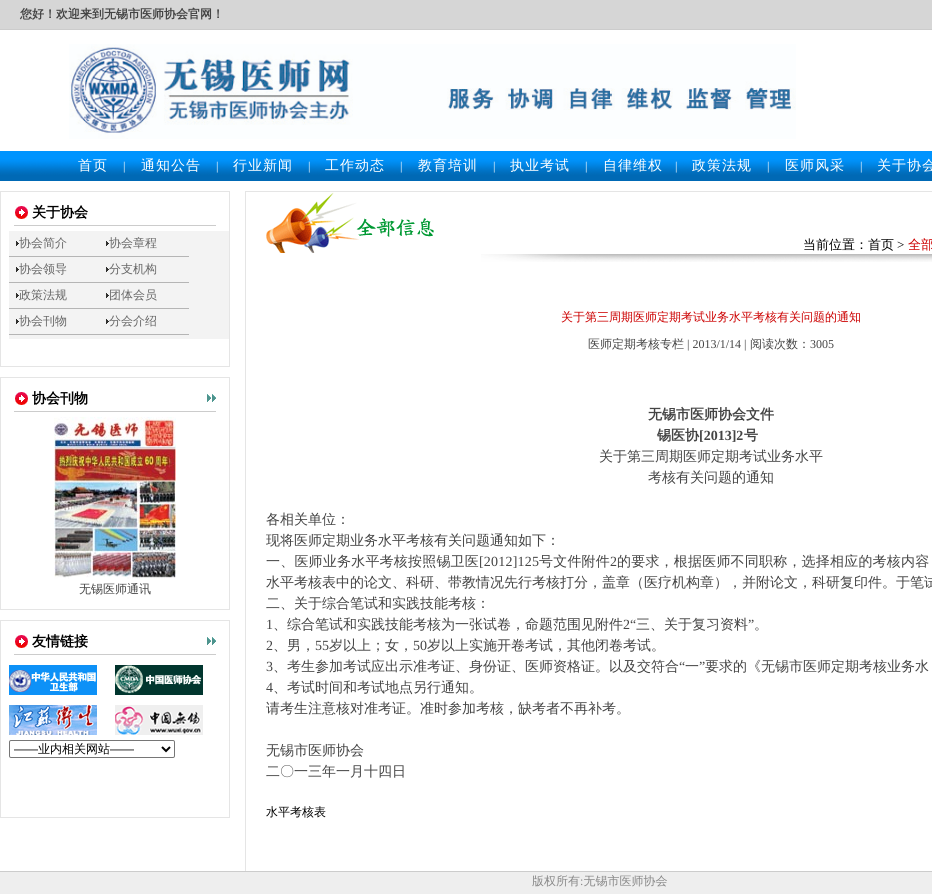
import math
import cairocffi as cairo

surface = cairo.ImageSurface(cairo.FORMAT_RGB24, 932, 894)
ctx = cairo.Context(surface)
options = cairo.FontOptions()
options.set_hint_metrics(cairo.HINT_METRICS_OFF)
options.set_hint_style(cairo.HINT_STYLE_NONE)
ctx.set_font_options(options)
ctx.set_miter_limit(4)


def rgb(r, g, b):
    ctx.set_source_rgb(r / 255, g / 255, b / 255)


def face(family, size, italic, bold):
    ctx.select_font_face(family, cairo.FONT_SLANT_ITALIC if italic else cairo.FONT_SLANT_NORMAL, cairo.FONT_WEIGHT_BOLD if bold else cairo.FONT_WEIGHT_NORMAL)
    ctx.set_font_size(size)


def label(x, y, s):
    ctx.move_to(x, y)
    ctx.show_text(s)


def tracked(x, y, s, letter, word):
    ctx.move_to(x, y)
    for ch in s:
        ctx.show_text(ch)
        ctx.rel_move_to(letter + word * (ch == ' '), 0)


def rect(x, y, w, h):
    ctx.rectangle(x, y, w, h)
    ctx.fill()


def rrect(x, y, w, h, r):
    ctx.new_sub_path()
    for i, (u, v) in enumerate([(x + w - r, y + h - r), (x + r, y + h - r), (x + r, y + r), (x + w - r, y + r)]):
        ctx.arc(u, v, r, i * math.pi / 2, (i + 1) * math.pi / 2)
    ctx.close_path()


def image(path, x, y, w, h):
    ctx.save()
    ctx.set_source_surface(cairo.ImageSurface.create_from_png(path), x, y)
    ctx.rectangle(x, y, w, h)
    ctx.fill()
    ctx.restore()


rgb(255, 255, 255)
ctx.paint()
rgb(214, 214, 214)
rect(0, 0, 932, 29)
rgb(204, 204, 204)
rect(0, 29, 932, 1)
face('WenQuanYi Zen Hei', 12, 0, 1)
rgb(68, 68, 68)
label(20, 18, '您好！欢迎来到无锡市医师协会官网！')
image('image0.png', 69, 44, 727, 95)
image('image1.png', 0, 151, 932, 30)
face('WenQuanYi Zen Hei Medium', 14, 0, 0)
rgb(255, 255, 255)
tracked(78, 170, '首页', 1, 0)
face('Liberation Serif', 12, 0, 0)
label(123, 170, '|')
face('WenQuanYi Zen Hei Medium', 14, 0, 0)
tracked(141, 170, '通知公告', 1, 0)
face('Liberation Serif', 12, 0, 0)
label(216, 170, '|')
face('WenQuanYi Zen Hei Medium', 14, 0, 0)
tracked(233, 170, '行业新闻', 1, 0)
face('Liberation Serif', 12, 0, 0)
label(308, 170, '|')
face('WenQuanYi Zen Hei Medium', 14, 0, 0)
tracked(325, 170, '工作动态', 1, 0)
face('Liberation Serif', 12, 0, 0)
label(400, 170, '|')
face('WenQuanYi Zen Hei Medium', 14, 0, 0)
tracked(418, 170, '教育培训', 1, 0)
face('Liberation Serif', 12, 0, 0)
label(493, 170, '|')
face('WenQuanYi Zen Hei Medium', 14, 0, 0)
tracked(510, 170, '执业考试', 1, 0)
face('Liberation Serif', 12, 0, 0)
label(585, 170, '|')
face('WenQuanYi Zen Hei Medium', 14, 0, 0)
tracked(603, 170, '自律维权', 1, 0)
face('Liberation Serif', 12, 0, 0)
label(675, 170, '|')
face('WenQuanYi Zen Hei Medium', 14, 0, 0)
tracked(692, 170, '政策法规', 1, 0)
face('Liberation Serif', 12, 0, 0)
label(767, 170, '|')
face('WenQuanYi Zen Hei Medium', 14, 0, 0)
tracked(785, 170, '医师风采', 1, 0)
face('Liberation Serif', 12, 0, 0)
label(860, 170, '|')
face('WenQuanYi Zen Hei Medium', 14, 0, 0)
tracked(877, 170, '关于协会', 1, 0)
ctx.rectangle(0.5, 191.5, 229, 175)
rgb(229, 229, 229)
ctx.set_line_width(1)
ctx.stroke()
image('image2.png', 15, 206, 13, 13)
rgb(204, 204, 204)
rect(14, 225, 202, 1)
face('WenQuanYi Zen Hei', 14, 0, 1)
rgb(0, 0, 0)
label(32, 217, '关于协会')
rgb(243, 243, 243)
rect(9, 231, 220, 108)
image('image3.png', 16, 241, 3, 5)
rgb(181, 181, 181)
rect(9, 256, 180, 1)
face('WenQuanYi Zen Hei Medium', 12, 0, 0)
rgb(102, 102, 102)
label(19, 247, '协会简介')
image('image3.png', 106, 241, 3, 5)
label(109, 247, '协会章程')
image('image3.png', 16, 267, 3, 5)
rgb(181, 181, 181)
rect(9, 282, 180, 1)
rgb(102, 102, 102)
label(19, 273, '协会领导')
image('image3.png', 106, 267, 3, 5)
label(109, 273, '分支机构')
image('image3.png', 16, 293, 3, 5)
rgb(181, 181, 181)
rect(9, 308, 180, 1)
rgb(102, 102, 102)
label(19, 299, '政策法规')
image('image3.png', 106, 293, 3, 5)
label(109, 299, '团体会员')
image('image3.png', 16, 319, 3, 5)
rgb(181, 181, 181)
rect(9, 334, 180, 1)
rgb(102, 102, 102)
label(19, 325, '协会刊物')
image('image3.png', 106, 319, 3, 5)
label(109, 325, '分会介绍')
ctx.rectangle(0.5, 377.5, 229, 232)
rgb(229, 229, 229)
ctx.stroke()
image('image2.png', 15, 392, 13, 13)
rgb(204, 204, 204)
rect(14, 411, 202, 1)
face('WenQuanYi Zen Hei', 14, 0, 1)
rgb(0, 0, 0)
label(32, 403, '协会刊物')
image('image4.png', 207, 394, 9, 8)
image('image5.png', 54, 417, 122, 162)
face('WenQuanYi Zen Hei Medium', 12, 0, 0)
rgb(68, 68, 68)
label(79, 593, '无锡医师通讯')
ctx.rectangle(0.5, 620.5, 229, 197)
rgb(229, 229, 229)
ctx.stroke()
image('image2.png', 15, 635, 13, 13)
rgb(204, 204, 204)
rect(14, 654, 202, 1)
face('WenQuanYi Zen Hei', 14, 0, 1)
rgb(0, 0, 0)
label(32, 646, '友情链接')
image('image4.png', 207, 637, 9, 8)
image('image6.png', 9, 665, 88, 30)
image('image7.png', 115, 665, 88, 30)
image('image8.png', 9, 705, 88, 30)
image('image9.png', 115, 705, 88, 30)
rrect(9.5, 740.5, 165, 17, 1.5)
rgb(118, 118, 118)
ctx.stroke()
ctx.new_path()
ctx.move_to(162, 747)
ctx.line_to(166, 751)
ctx.line_to(170, 747)
rgb(0, 0, 0)
ctx.set_line_width(2)
ctx.stroke()
face('Liberation Sans', 12, 0, 0)
label(14, 753, '——')
face('WenQuanYi Zen Hei Medium', 12, 0, 0)
label(38, 753, '业内相关网站')
face('Liberation Sans', 12, 0, 0)
label(110, 753, '——')
rgb(229, 229, 229)
rect(245, 191, 687, 1)
rect(245, 191, 1, 680)
image('image10.png', 481, 254, 451, 8)
image('image11.png', 266, 192, 168, 61)
face('WenQuanYi Zen Hei Medium', 13, 0, 0)
rgb(0, 0, 0)
label(803, 249, '当前位置：首页')
face('Liberation Serif', 13, 0, 0)
label(897, 249, '>')
face('WenQuanYi Zen Hei Medium', 13, 0, 0)
rgb(204, 0, 0)
label(908, 249, '全部')
face('WenQuanYi Zen Hei Medium', 12, 0, 0)
label(561, 321, '关于第三周期医师定期考试业务水平考核有关问题的通知')
rgb(68, 68, 68)
label(588, 348, '医师定期考核专栏')
face('Liberation Serif', 12, 0, 0)
label(687, 348, '| 2013/1/14 |')
face('WenQuanYi Zen Hei Medium', 12, 0, 0)
label(750, 348, '阅读次数：')
face('Liberation Serif', 12, 0, 0)
label(810, 348, '3005')
face('WenQuanYi Zen Hei', 14, 0, 1)
label(648, 419, '无锡市医师协会文件')
label(657, 440, '锡医协')
face('Liberation Serif', 14, 0, 1)
label(699, 440, '[2013]2')
face('WenQuanYi Zen Hei', 14, 0, 1)
label(744, 440, '号')
face('WenQuanYi Zen Hei Medium', 14, 0, 0)
label(599, 461, '关于第三周期医师定期考试业务水平')
label(648, 482, '考核有关问题的通知')
label(266, 524, '各相关单位：')
label(266, 545, '现将医师定期业务水平考核有关问题通知如下：')
tracked(266, 566, '一、医师业务水平考核按照锡卫医', 0.2, 0)
face('Liberation Serif', 14, 0, 0)
tracked(479, 566, '[2012]125', 0.2, 0)
face('WenQuanYi Zen Hei Medium', 14, 0, 0)
tracked(539, 566, '号文件附件', 0.2, 0)
face('Liberation Serif', 14, 0, 0)
tracked(610, 566, '2', 0.2, 0)
face('WenQuanYi Zen Hei Medium', 14, 0, 0)
tracked(617, 566, '的要求，根据医师不同职称，选择相应的考核内容', 0.2, 0)
label(266, 587, '水平考核表中的论文、科研、带教情况先行考核打分，盖章（医疗机构章），并附论文，科研复印件。于笔试')
label(266, 608, '二、关于综合笔试和实践技能考核：')
face('Liberation Serif', 14, 0, 0)
label(266, 629, '1')
face('WenQuanYi Zen Hei Medium', 14, 0, 0)
label(273, 629, '、综合笔试和实践技能考核为一张试卷，命题范围见附件')
face('Liberation Serif', 14, 0, 0)
label(623, 629, '2“')
face('WenQuanYi Zen Hei Medium', 14, 0, 0)
label(636, 629, '三、关于复习资料')
face('Liberation Serif', 14, 0, 0)
label(748, 629, '”')
face('WenQuanYi Zen Hei Medium', 14, 0, 0)
label(754, 629, '。')
face('Liberation Serif', 14, 0, 0)
label(266, 650, '2')
face('WenQuanYi Zen Hei Medium', 14, 0, 0)
label(273, 650, '、男，')
face('Liberation Serif', 14, 0, 0)
label(315, 650, '55')
face('WenQuanYi Zen Hei Medium', 14, 0, 0)
label(329, 650, '岁以上；女，')
face('Liberation Serif', 14, 0, 0)
label(413, 650, '50')
face('WenQuanYi Zen Hei Medium', 14, 0, 0)
label(427, 650, '岁以上实施开卷考试，其他闭卷考试。')
face('Liberation Serif', 14, 0, 0)
label(266, 671, '3')
face('WenQuanYi Zen Hei Medium', 14, 0, 0)
label(273, 671, '、考生参加考试应出示准考证、身份证、医师资格证。以及交符合')
face('Liberation Serif', 14, 0, 0)
label(679, 671, '“')
face('WenQuanYi Zen Hei Medium', 14, 0, 0)
label(685, 671, '一')
face('Liberation Serif', 14, 0, 0)
label(699, 671, '”')
face('WenQuanYi Zen Hei Medium', 14, 0, 0)
label(705, 671, '要求的《无锡市医师定期考核业务水')
face('Liberation Serif', 14, 0, 0)
label(266, 692, '4')
face('WenQuanYi Zen Hei Medium', 14, 0, 0)
label(273, 692, '、考试时间和考试地点另行通知。')
label(266, 713, '请考生注意核对准考证。准时参加考核，缺考者不再补考。')
label(266, 755, '无锡市医师协会')
label(266, 776, '二〇一三年一月十四日')
face('WenQuanYi Zen Hei Medium', 12, 0, 0)
rgb(0, 0, 0)
label(266, 816, '水平考核表')
rgb(238, 238, 238)
rect(0, 872, 932, 22)
rgb(204, 204, 204)
rect(0, 871, 932, 1)
rgb(136, 136, 136)
label(532, 885, '版权所有 无锡市医师协会')
face('Liberation Serif', 12, 0, 0)
label(580, 885, ':')
surface.write_to_png('render.png')
